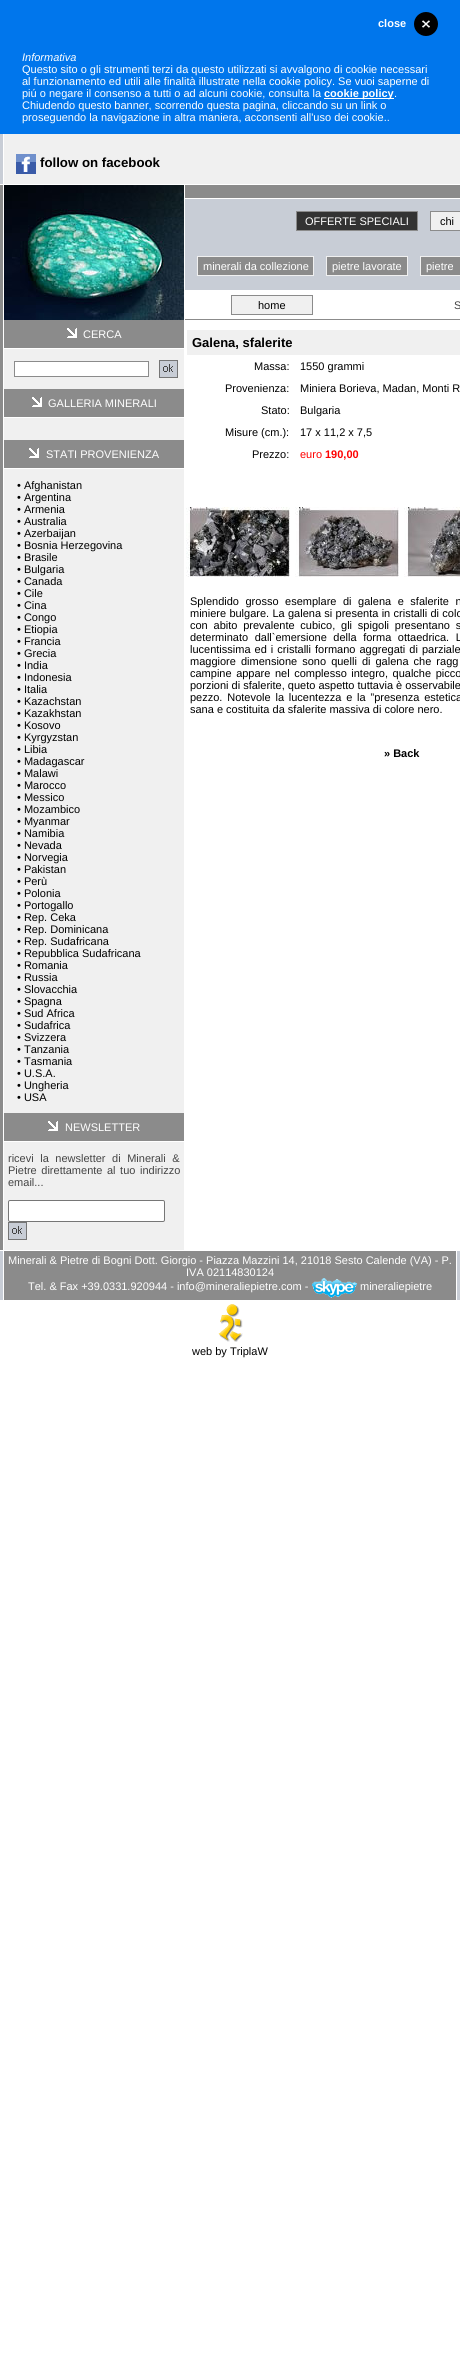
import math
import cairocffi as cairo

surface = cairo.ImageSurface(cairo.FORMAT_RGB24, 460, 2364)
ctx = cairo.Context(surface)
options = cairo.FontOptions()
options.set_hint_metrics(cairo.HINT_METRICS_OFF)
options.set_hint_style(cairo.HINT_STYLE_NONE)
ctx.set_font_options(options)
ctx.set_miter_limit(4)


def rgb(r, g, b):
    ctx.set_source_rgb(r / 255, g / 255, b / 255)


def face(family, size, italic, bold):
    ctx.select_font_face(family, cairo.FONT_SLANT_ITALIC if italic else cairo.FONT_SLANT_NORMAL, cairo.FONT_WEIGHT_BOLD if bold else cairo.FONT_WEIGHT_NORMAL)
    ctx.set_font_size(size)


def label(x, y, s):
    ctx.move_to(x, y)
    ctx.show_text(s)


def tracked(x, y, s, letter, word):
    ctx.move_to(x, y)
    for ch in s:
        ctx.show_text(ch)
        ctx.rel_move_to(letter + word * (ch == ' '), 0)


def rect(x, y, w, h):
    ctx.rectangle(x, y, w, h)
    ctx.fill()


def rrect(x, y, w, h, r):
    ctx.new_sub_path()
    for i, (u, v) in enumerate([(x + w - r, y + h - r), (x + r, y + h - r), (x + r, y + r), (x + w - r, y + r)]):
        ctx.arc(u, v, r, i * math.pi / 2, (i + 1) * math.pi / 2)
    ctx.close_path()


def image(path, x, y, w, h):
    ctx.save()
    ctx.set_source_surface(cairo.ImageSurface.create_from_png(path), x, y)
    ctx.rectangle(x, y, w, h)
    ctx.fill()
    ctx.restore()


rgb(255, 255, 255)
ctx.paint()
rgb(0, 118, 236)
rect(0, 0, 460, 134)
face('Liberation Sans', 11, 0, 1)
rgb(255, 255, 255)
label(378, 27, 'close')
rgb(0, 0, 0)
ctx.new_path()
ctx.arc(426, 24, 12, 0, 2 * math.pi)
ctx.fill()
image('image0.png', 422, 20, 8, 8)
face('Liberation Sans', 11, 1, 0)
rgb(255, 255, 255)
label(22, 61, 'Informativa')
face('Liberation Sans', 11, 0, 0)
label(22, 73, 'Questo sito o gli strumenti terzi da questo utilizzati si avvalgono di cookie necessari')
label(22, 85, 'al funzionamento ed utili alle finalità illustrate nella cookie policy. Se vuoi saperne di')
label(22, 97, 'piú o negare il consenso a tutti o ad alcuni cookie, consulta la')
rect(324, 98, 70, 1)
face('Liberation Sans', 11, 0, 1)
label(324, 97, 'cookie policy')
face('Liberation Sans', 11, 0, 0)
label(394, 97, '.')
label(22, 109, 'Chiudendo questo banner, scorrendo questa pagina, cliccando su un link o')
label(22, 121, 'proseguendo la navigazione in altra maniera, acconsenti all\'uso dei cookie..')
rgb(200, 205, 214)
rect(0, 134, 3, 50)
rgb(240, 240, 240)
rect(4, 134, 456, 50)
image('image1.png', 16, 154, 20, 20)
face('Liberation Sans', 13.25, 0, 1)
rgb(0, 0, 0)
label(40, 167, 'follow on facebook')
rgb(139, 139, 139)
rect(0, 185, 3, 1065)
image('image2.png', 4, 185, 180, 135)
rect(185, 185, 275, 13)
rgb(200, 205, 214)
rect(185, 199, 275, 91)
rgb(51, 51, 51)
ctx.rectangle(296.5, 211.5, 121, 19)
ctx.fill_preserve()
rgb(139, 139, 139)
ctx.set_line_width(1)
ctx.stroke()
face('Liberation Sans', 11, 0, 0)
rgb(255, 255, 255)
label(305, 225, 'OFFERTE SPECIALI')
rgb(240, 240, 240)
ctx.rectangle(430.5, 211.5, 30, 19)
ctx.fill_preserve()
rgb(139, 139, 139)
ctx.stroke()
rgb(0, 0, 0)
label(440, 225, 'chi')
rgb(139, 139, 139)
ctx.rectangle(197.5, 256.5, 116, 19)
ctx.fill_preserve()
rgb(240, 240, 240)
ctx.stroke()
rgb(255, 255, 255)
label(203, 270, 'minerali da collezione')
rgb(139, 139, 139)
ctx.rectangle(326.5, 256.5, 81, 19)
ctx.fill_preserve()
rgb(240, 240, 240)
ctx.stroke()
rgb(255, 255, 255)
label(332, 270, 'pietre lavorate')
rgb(139, 139, 139)
ctx.rectangle(420.5, 256.5, 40, 19)
ctx.fill_preserve()
rgb(240, 240, 240)
ctx.stroke()
rgb(255, 255, 255)
label(426, 270, 'pietre')
rgb(240, 240, 240)
ctx.rectangle(231.5, 295.5, 81, 19)
ctx.fill_preserve()
rgb(139, 139, 139)
ctx.stroke()
rgb(0, 0, 0)
label(258, 309, 'home')
rgb(68, 68, 68)
label(454, 309, 'S')
rgb(139, 139, 139)
rect(185, 319, 275, 1)
rgb(240, 240, 240)
rect(4, 349, 180, 901)
rgb(139, 139, 139)
rect(4, 320, 180, 28)
image('image3.png', 67, 328, 10, 10)
rgb(255, 255, 255)
label(83, 338, 'CERCA')
ctx.rectangle(14.5, 361.5, 134, 15)
ctx.fill_preserve()
rgb(139, 139, 139)
ctx.stroke()
image('image4.png', 159, 360, 19, 18)
rect(4, 389, 180, 28)
image('image3.png', 32, 397, 10, 10)
rgb(255, 255, 255)
label(48, 407, 'GALLERIA MINERALI')
rect(4, 417, 180, 1)
rgb(139, 139, 139)
rect(4, 440, 180, 28)
image('image3.png', 29, 448, 10, 10)
rgb(255, 255, 255)
label(46, 458, 'STATI PROVENIENZA')
rect(4, 468, 180, 1)
rgb(0, 0, 0)
label(17, 489, '• Afghanistan')
label(17, 501, '• Argentina')
label(17, 513, '• Armenia')
label(17, 525, '• Australia')
label(17, 537, '• Azerbaijan')
label(17, 549, '• Bosnia Herzegovina')
label(17, 561, '• Brasile')
label(17, 573, '• Bulgaria')
label(17, 585, '• Canada')
label(17, 597, '• Cile')
label(17, 609, '• Cina')
label(17, 621, '• Congo')
label(17, 633, '• Etiopia')
label(17, 645, '• Francia')
label(17, 657, '• Grecia')
label(17, 669, '• India')
label(17, 681, '• Indonesia')
label(17, 693, '• Italia')
label(17, 705, '• Kazachstan')
label(17, 717, '• Kazakhstan')
label(17, 729, '• Kosovo')
label(17, 741, '• Kyrgyzstan')
label(17, 753, '• Libia')
label(17, 765, '• Madagascar')
label(17, 777, '• Malawi')
label(17, 789, '• Marocco')
label(17, 801, '• Messico')
label(17, 813, '• Mozambico')
label(17, 825, '• Myanmar')
label(17, 837, '• Namibia')
label(17, 849, '• Nevada')
label(17, 861, '• Norvegia')
label(17, 873, '• Pakistan')
label(17, 885, '• Perù')
label(17, 897, '• Polonia')
label(17, 909, '• Portogallo')
label(17, 921, '• Rep. Ceka')
label(17, 933, '• Rep. Dominicana')
label(17, 945, '• Rep. Sudafricana')
label(17, 957, '• Repubblica Sudafricana')
label(17, 969, '• Romania')
label(17, 981, '• Russia')
label(17, 993, '• Slovacchia')
label(17, 1005, '• Spagna')
label(17, 1017, '• Sud Africa')
label(17, 1029, '• Sudafrica')
label(17, 1041, '• Svizzera')
label(17, 1053, '• Tanzania')
label(17, 1065, '• Tasmania')
label(17, 1077, '• U.S.A.')
label(17, 1089, '• Ungheria')
label(17, 1101, '• USA')
rgb(139, 139, 139)
rect(4, 1113, 180, 28)
image('image3.png', 48, 1121, 10, 10)
rgb(255, 255, 255)
label(65, 1131, 'NEWSLETTER')
rect(4, 1141, 180, 1)
rgb(68, 68, 68)
tracked(8, 1162, 'ricevi la newsletter di Minerali &', 0, 3.5)
tracked(8, 1174, 'Pietre direttamente al tuo indirizzo', 0, 1.5)
label(8, 1186, 'email...')
rgb(255, 255, 255)
rrect(8.5, 1200.5, 156, 21, 1.5)
ctx.fill_preserve()
rgb(118, 118, 118)
ctx.stroke()
image('image4.png', 8, 1222, 19, 18)
rgb(240, 240, 240)
rect(187, 330, 273, 25)
face('Liberation Sans', 13, 0, 1)
rgb(0, 0, 0)
label(192, 347, 'Galena, sfalerite')
face('Liberation Sans', 11, 0, 0)
label(254, 370, 'Massa:')
label(300, 370, '1550 grammi')
label(225, 392, 'Provenienza:')
label(300, 392, 'Miniera Borieva, Madan, Monti R')
label(261, 414, 'Stato:')
label(300, 414, 'Bulgaria')
label(225, 436, 'Misure (cm.):')
label(300, 436, '17 x 11,2 x 7,5')
label(252, 458, 'Prezzo:')
rgb(255, 0, 0)
label(300, 458, 'euro')
face('Liberation Sans', 11, 0, 1)
label(325, 458, '190,00')
image('image5.png', 186, 507, 104, 70)
image('image6.png', 295, 507, 104, 70)
image('image7.png', 404, 507, 56, 70)
face('Liberation Sans', 11, 0, 0)
rgb(0, 0, 0)
tracked(190, 605, 'Splendido grosso esemplare di galena e sfalerite n', 0, 3.5)
tracked(190, 617, 'miniere bulgare. La galena si presenta in cristalli di colo', 0, 0.25)
tracked(190, 629, 'con abito prevalente cubico, gli spigoli presentano s', 0, 2.75)
tracked(190, 641, 'determinato dall`emersione della forma ottaedrica. L', 0, 3.5)
tracked(190, 653, 'lucentissima ed i cristalli formano aggregati di parziale', 0, 1)
tracked(190, 665, 'maggiore dimensione sono quelli di galena che ragg', 0, 2)
tracked(190, 677, 'campine appare nel complesso integro, qualche picco', 0, 1.5)
label(190, 689, 'porzioni di sfalerite, queto aspetto tuttavia è osservabile')
tracked(190, 701, 'pezzo. Notevole la lucentezza e la ”presenza estetica', 0, 1.75)
label(190, 713, 'sana e costituita da sfalerite massiva di colore nero.')
face('Liberation Sans', 11, 0, 1)
label(384, 757, '» Back')
rgb(200, 205, 214)
rect(0, 1251, 3, 49)
rgb(139, 139, 139)
rect(4, 1251, 452, 49)
face('Liberation Sans', 11, 0, 0)
rgb(255, 255, 255)
label(8, 1264, 'Minerali & Pietre di Bogni Dott. Giorgio - Piazza Mazzini 14, 21018 Sesto Calende (VA) - P.')
label(186, 1276, 'IVA 02114830124')
label(28, 1290, 'Tel. & Fax +39.0331.920944 - info@mineraliepietre.com -')
image('image8.png', 312, 1278, 45, 20)
label(360, 1290, 'mineraliepietre')
rgb(200, 205, 214)
rect(457, 1251, 3, 49)
image('image9.png', 218, 1304, 25, 38)
rgb(0, 0, 0)
label(192, 1355, 'web by TriplaW')
surface.write_to_png('render.png')
